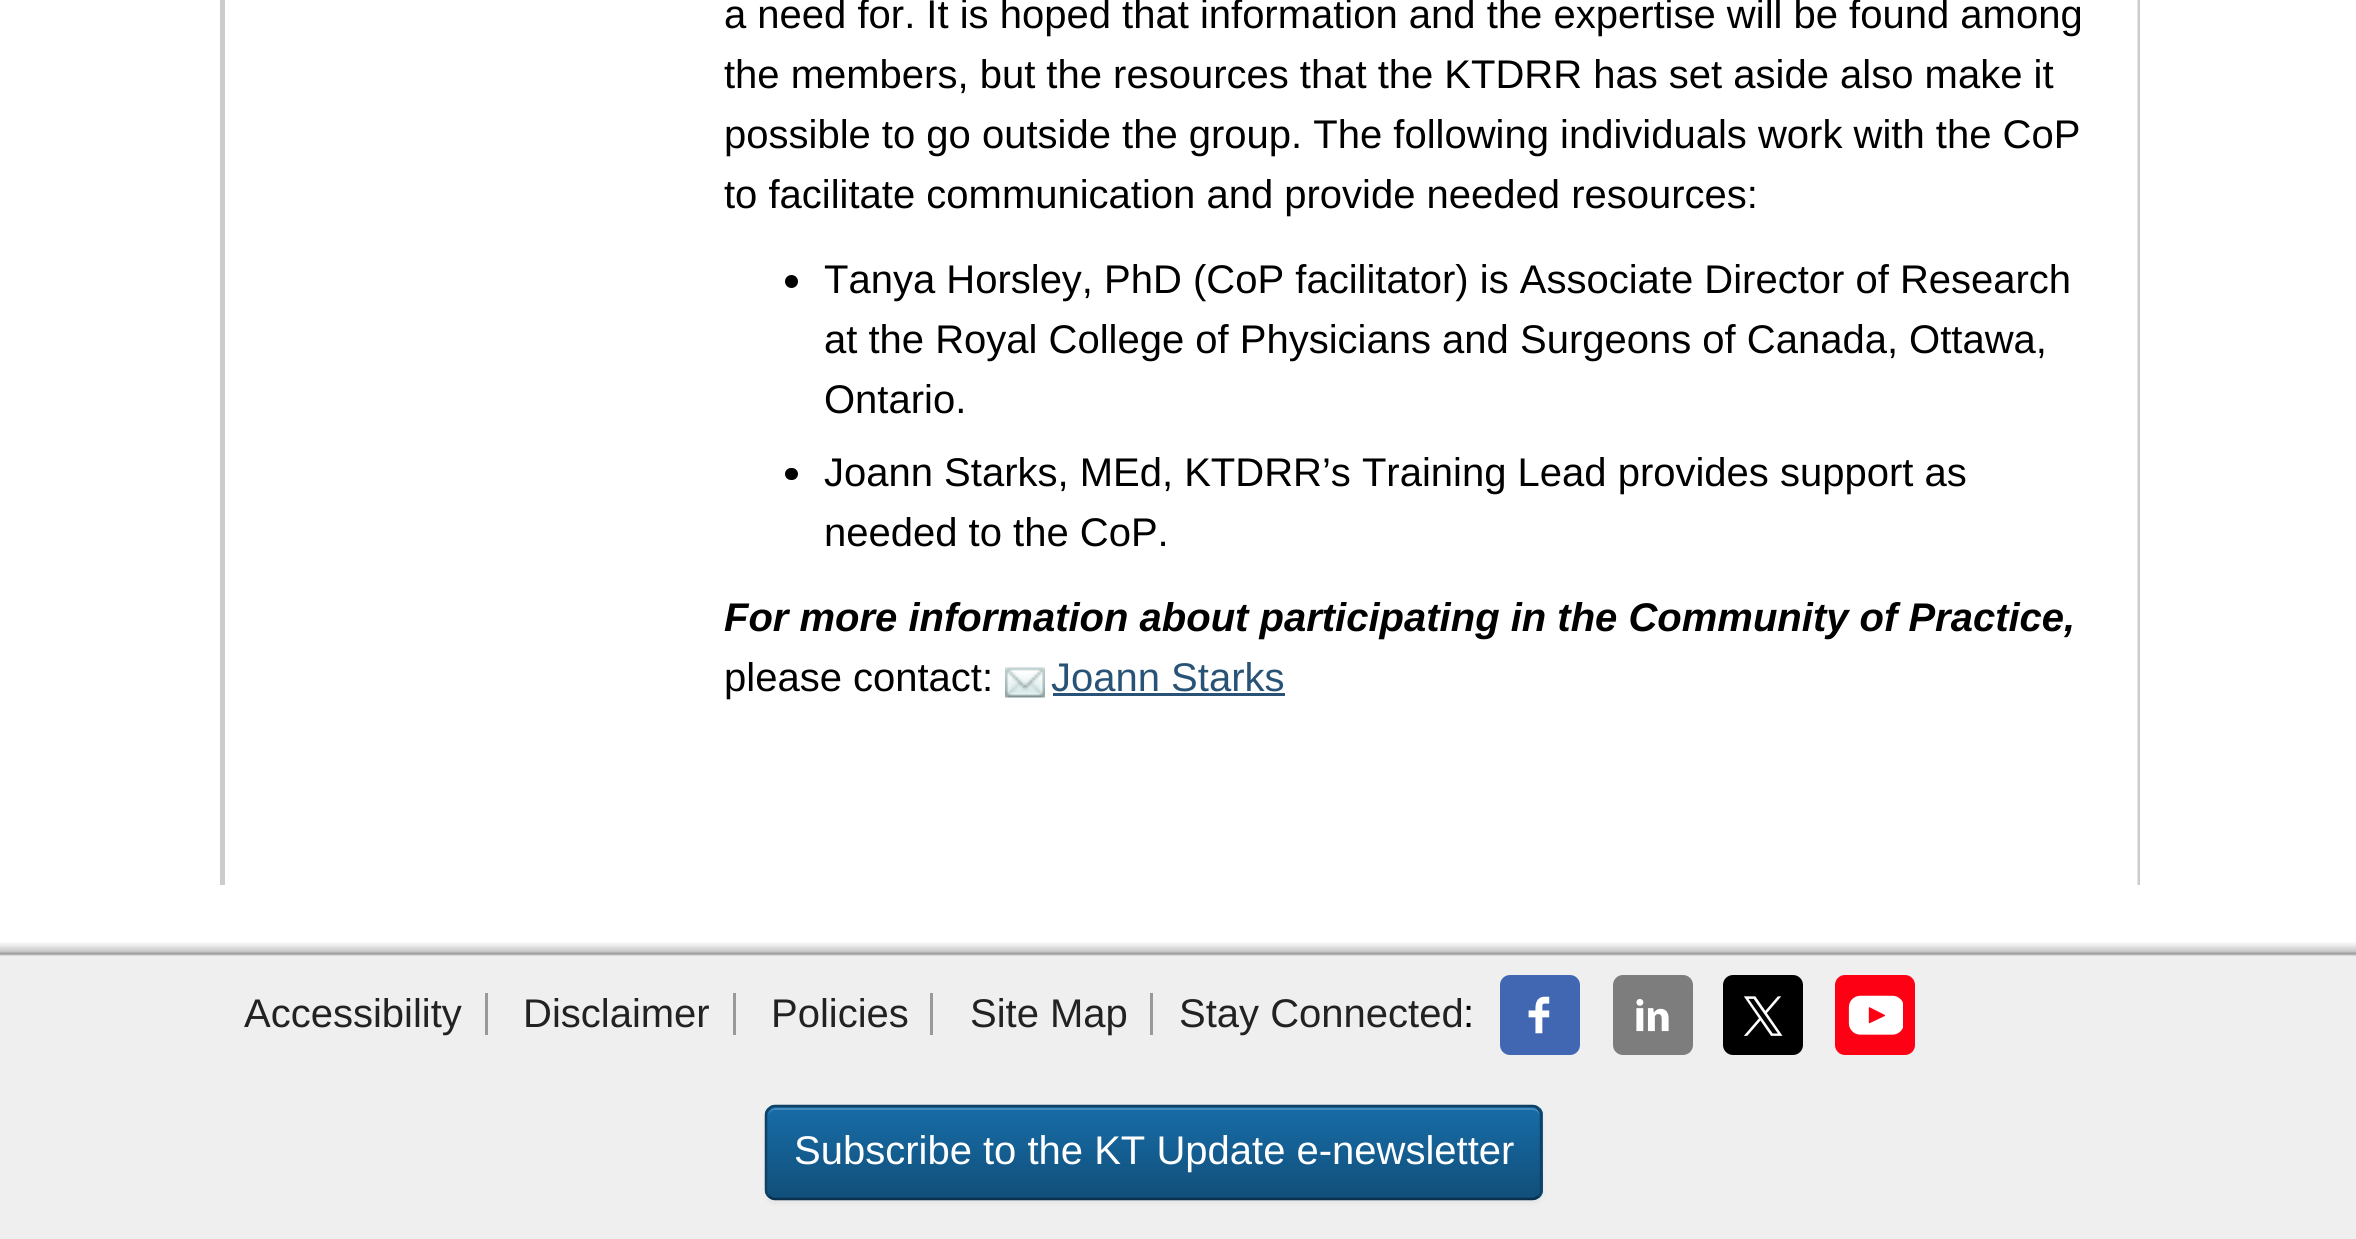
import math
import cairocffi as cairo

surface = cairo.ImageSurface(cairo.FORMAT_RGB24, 2356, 1239)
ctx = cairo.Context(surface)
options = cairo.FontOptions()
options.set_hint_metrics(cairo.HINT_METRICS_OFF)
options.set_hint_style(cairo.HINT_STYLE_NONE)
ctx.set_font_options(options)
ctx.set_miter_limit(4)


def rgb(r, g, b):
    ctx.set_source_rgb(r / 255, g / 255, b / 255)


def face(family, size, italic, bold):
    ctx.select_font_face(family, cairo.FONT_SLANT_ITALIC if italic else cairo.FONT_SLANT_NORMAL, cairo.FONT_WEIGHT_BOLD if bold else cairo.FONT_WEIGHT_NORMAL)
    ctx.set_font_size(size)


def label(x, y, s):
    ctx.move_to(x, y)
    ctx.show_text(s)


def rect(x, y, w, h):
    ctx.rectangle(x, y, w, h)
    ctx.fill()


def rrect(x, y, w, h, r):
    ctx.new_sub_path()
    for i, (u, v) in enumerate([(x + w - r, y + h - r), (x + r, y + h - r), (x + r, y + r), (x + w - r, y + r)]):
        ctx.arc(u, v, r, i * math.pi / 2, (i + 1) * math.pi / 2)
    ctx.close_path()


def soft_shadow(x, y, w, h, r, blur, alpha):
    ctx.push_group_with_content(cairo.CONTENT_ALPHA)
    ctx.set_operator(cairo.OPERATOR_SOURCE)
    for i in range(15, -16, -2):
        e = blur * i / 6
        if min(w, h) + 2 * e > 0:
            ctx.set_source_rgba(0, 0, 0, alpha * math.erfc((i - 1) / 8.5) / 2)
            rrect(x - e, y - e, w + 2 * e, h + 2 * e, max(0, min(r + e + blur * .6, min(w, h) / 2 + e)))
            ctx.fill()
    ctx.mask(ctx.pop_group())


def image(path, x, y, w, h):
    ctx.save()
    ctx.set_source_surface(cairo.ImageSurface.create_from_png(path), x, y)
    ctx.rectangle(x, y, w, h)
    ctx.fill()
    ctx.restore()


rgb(255, 255, 255)
ctx.paint()
image('image0.png', 220, 0, 1920, 885)
face('Liberation Sans', 40, 0, 0)
rgb(0, 0, 0)
label(724, 28, 'a need for. It is hoped that information and the expertise will be found among')
label(724, 88, 'the members, but the resources that the KTDRR has set aside also make it')
label(724, 148, 'possible to go outside the group. The following individuals work with the CoP')
label(724, 208, 'to facilitate communication and provide needed resources:')
ctx.new_path()
ctx.arc(791.5, 281.5, 6.5, 0, 2 * math.pi)
ctx.fill()
label(824, 293, 'Tanya Horsley, PhD (CoP facilitator) is Associate Director of Research')
label(824, 353, 'at the Royal College of Physicians and Surgeons of Canada, Ottawa,')
label(824, 413, 'Ontario.')
rrect(785, 468, 13, 12, 6)
ctx.fill()
label(824, 486, 'Joann Starks, MEd, KTDRR’s Training Lead provides support as')
label(824, 546, 'needed to the CoP.')
face('Liberation Sans', 40, 1, 1)
label(724, 631, 'For more information about participating in the Community of Practice,')
face('Liberation Sans', 40, 0, 0)
label(724, 691, 'please contact:')
image('image1.png', 1005, 667, 40, 31)
rgb(41, 83, 118)
label(1051, 691, 'Joann Starks')
rect(1053, 693, 232, 3)
rgb(239, 239, 239)
rect(0, 956, 2356, 283)
image('image2.png', 0, 885, 2356, 71)
rgb(34, 34, 34)
label(244, 1027, 'Accessibility')
rgb(153, 153, 153)
rect(485, 993, 3, 42)
rgb(34, 34, 34)
label(523, 1027, 'Disclaimer')
rgb(153, 153, 153)
rect(733, 993, 3, 42)
rgb(34, 34, 34)
label(771, 1027, 'Policies')
rgb(153, 153, 153)
rect(930, 993, 3, 42)
rgb(34, 34, 34)
label(970, 1027, 'Site Map')
rgb(153, 153, 153)
rect(1150, 993, 3, 42)
rgb(34, 34, 34)
label(1179, 1027, 'Stay Connected')
rgb(0, 0, 0)
label(1463, 1027, ':')
rgb(66, 103, 178)
rrect(1500, 975, 80, 80, 10)
ctx.fill()
image('image3.png', 1528, 996, 22, 38)
rgb(125, 125, 125)
rrect(1613, 975, 80, 80, 10)
ctx.fill()
image('image4.png', 1636, 999, 33, 33)
rgb(0, 0, 0)
rrect(1723, 975, 80, 80, 10)
ctx.fill()
image('image5.png', 1743, 996, 40, 40)
rgb(253, 0, 19)
rrect(1835, 975, 80, 80, 10)
ctx.fill()
image('image6.png', 1848, 995, 55, 40)
rgb(0, 0, 0)
soft_shadow(765, 1108, 778, 95, 10, 2.5, 0.05)
rgb(23, 108, 167)
rrect(765, 1105, 778, 95, 10)
ctx.fill()
ctx.save()
rrect(765, 1105, 778, 95, 10)
ctx.clip()
gradient = cairo.LinearGradient(1154, 1108, 1154, 1198)
gradient.add_color_stop_rgba(0, 0.09, 0.424, 0.655, 1)
gradient.add_color_stop_rgba(1, 0.067, 0.31, 0.478, 1)
ctx.set_source(gradient)
rect(765, 1108, 778, 90)
ctx.restore()
rgb(69, 137, 184)
ctx.new_path()
ctx.move_to(775, 1110)
ctx.line_to(1532, 1110)
ctx.curve_to(1537, 1110, 1540, 1113, 1540, 1118)
ctx.curve_to(1540, 1113, 1538, 1108, 1532, 1108)
ctx.line_to(776, 1108)
ctx.curve_to(770, 1108, 768, 1113, 768, 1118)
ctx.curve_to(768, 1113, 771, 1110, 775, 1110)
ctx.close_path()
ctx.fill()
ctx.new_path()
ctx.move_to(1538.5, 1196)
ctx.curve_to(1537, 1198, 1535, 1199, 1532.5, 1199)
ctx.line_to(775, 1199)
ctx.curve_to(772.5, 1199, 770.5, 1198, 769, 1196)
rgb(11, 50, 77)
ctx.set_line_width(2.5)
ctx.stroke()
ctx.new_path()
ctx.move_to(769, 1196)
ctx.curve_to(767, 1194.5, 766, 1192.5, 766, 1190)
ctx.line_to(766, 1115)
ctx.curve_to(766, 1112.5, 767, 1110.5, 769, 1109)
ctx.curve_to(770.5, 1107, 772.5, 1106, 775, 1106)
ctx.line_to(1532.5, 1106)
ctx.curve_to(1535, 1106, 1537, 1107, 1538.5, 1109)
ctx.curve_to(1540.5, 1110.5, 1541, 1112.5, 1541, 1115)
ctx.line_to(1541, 1190)
ctx.curve_to(1541, 1192.5, 1540.5, 1194.5, 1538.5, 1196)
rgb(14, 65, 100)
ctx.stroke()
rgb(255, 255, 255)
label(794, 1164, 'Subscribe to the KT Update e-newsletter')
surface.write_to_png('render.png')
